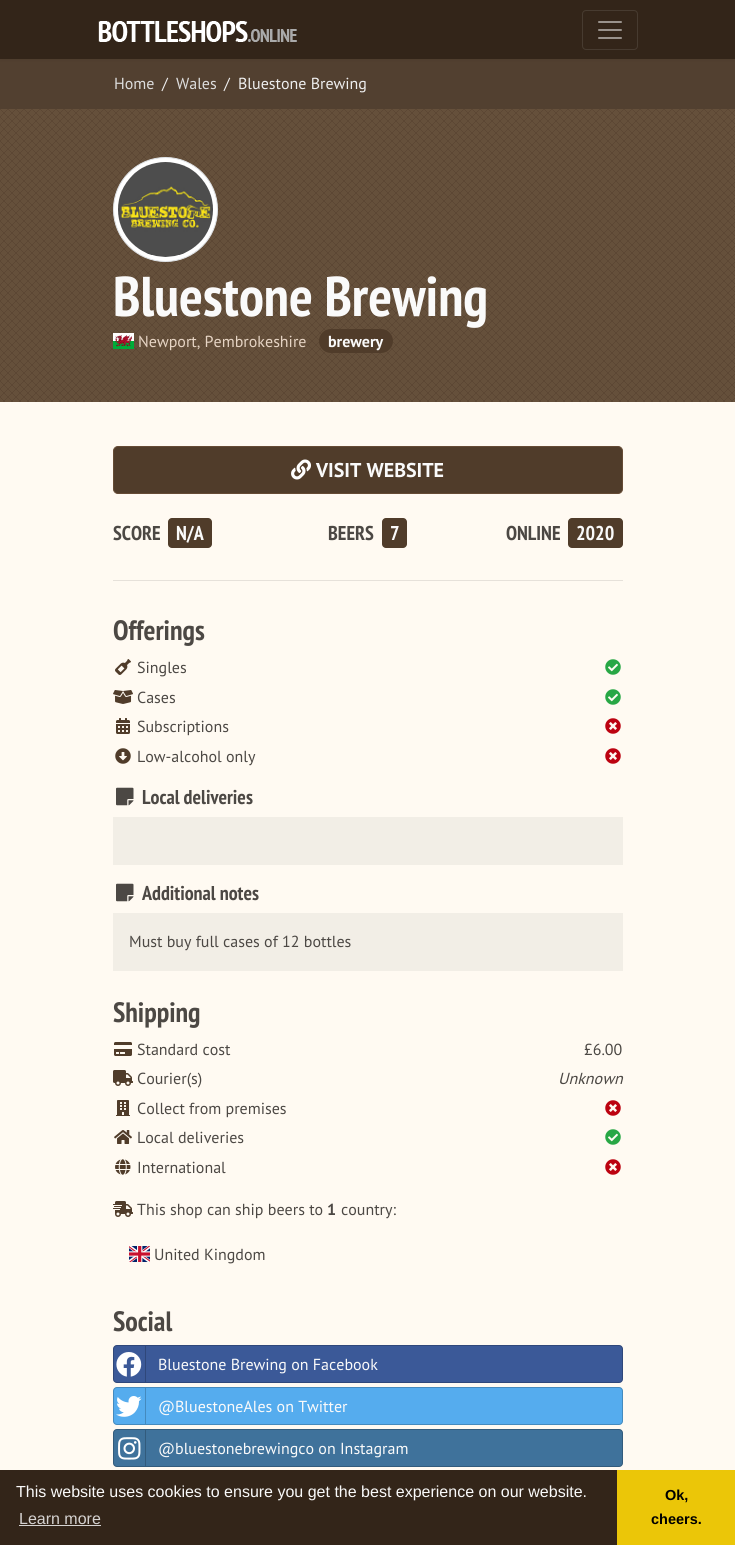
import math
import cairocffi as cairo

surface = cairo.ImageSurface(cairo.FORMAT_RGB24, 735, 1545)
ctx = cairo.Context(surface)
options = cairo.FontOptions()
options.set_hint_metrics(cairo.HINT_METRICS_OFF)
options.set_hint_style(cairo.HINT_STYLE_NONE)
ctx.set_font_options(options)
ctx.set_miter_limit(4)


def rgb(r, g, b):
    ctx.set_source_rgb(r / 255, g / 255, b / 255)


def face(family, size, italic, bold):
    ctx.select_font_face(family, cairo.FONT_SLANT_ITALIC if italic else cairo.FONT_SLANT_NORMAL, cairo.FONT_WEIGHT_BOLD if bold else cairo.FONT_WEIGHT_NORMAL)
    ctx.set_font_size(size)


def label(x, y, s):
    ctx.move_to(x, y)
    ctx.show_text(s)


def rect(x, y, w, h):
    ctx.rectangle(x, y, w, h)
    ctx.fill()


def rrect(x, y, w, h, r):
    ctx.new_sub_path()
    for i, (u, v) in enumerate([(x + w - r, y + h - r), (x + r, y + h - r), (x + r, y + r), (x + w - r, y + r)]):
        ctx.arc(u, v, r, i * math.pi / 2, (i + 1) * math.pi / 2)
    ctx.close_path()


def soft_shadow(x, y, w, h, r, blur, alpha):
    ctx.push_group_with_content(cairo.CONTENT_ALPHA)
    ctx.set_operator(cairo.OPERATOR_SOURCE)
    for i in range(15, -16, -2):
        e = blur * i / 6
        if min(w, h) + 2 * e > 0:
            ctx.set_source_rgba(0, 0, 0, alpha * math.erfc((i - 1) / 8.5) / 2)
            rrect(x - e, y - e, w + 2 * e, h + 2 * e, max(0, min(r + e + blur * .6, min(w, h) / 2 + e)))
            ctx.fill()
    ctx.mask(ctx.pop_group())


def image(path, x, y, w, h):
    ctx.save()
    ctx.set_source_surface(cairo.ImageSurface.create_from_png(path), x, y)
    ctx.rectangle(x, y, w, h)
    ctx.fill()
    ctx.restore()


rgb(255, 250, 242)
ctx.paint()
rgb(82, 64, 48)
rect(0, 59, 735, 50)
rgb(0, 0, 0)
soft_shadow(0, 2, 735, 59, 0, 2, 0.04)
rgb(51, 37, 25)
rect(0, 0, 735, 59)
image('image0.png', 98, 21, 199, 21)
rrect(582.5, 10.5, 55, 39, 3.5)
rgb(71, 59, 48)
ctx.set_line_width(1)
ctx.stroke()
image('image1.png', 598, 21, 24, 18)
face('PT Sans', 16, 0, 0)
rgb(221, 221, 221)
label(114, 89, 'Home')
rgb(238, 238, 238)
label(162, 89, '/')
rgb(221, 221, 221)
label(176, 89, 'Wales')
rgb(238, 238, 238)
label(224, 89, '/')
label(238, 89, 'Bluestone Brewing')
image('image2.png', 0, 109, 735, 293)
rgb(255, 255, 255)
ctx.arc(165.5, 209.5, 52, 0, 2 * math.pi)
ctx.fill_preserve()
rgb(222, 226, 230)
ctx.stroke()
image('image3.png', 118, 162, 95, 95)
face('PT Sans Narrow', 56, 0, 1)
rgb(250, 250, 250)
label(113, 316, 'Bluestone Brewing')
image('image4.png', 113, 333, 21, 16)
face('PT Sans', 16, 0, 0)
rgb(230, 212, 196)
label(138, 347, 'Newport, Pembrokeshire')
rgb(80, 60, 42)
rrect(319, 329, 74, 24, 12)
ctx.fill()
face('PT Sans', 16, 0, 1)
rgb(250, 250, 250)
label(328, 347, 'brewery')
rgb(80, 60, 42)
rrect(113.5, 446.5, 509, 47, 4.5)
ctx.fill_preserve()
rgb(101, 75, 53)
ctx.stroke()
image('image5.png', 291, 459, 20, 21)
face('PT Sans', 20, 0, 1)
rgb(250, 250, 250)
label(316, 477, 'VISIT WEBSITE')
face('PT Sans Narrow', 20, 0, 1)
rgb(76, 72, 68)
label(113, 540, 'SCORE')
rgb(80, 60, 42)
rrect(168, 518, 44, 30, 4)
ctx.fill()
rgb(250, 250, 250)
label(176, 540, 'N/A')
rgb(76, 72, 68)
label(328, 540, 'BEERS')
rgb(80, 60, 42)
rrect(382, 518, 25, 30, 4)
ctx.fill()
rgb(250, 250, 250)
label(390, 540, '7')
rgb(76, 72, 68)
label(506, 540, 'ONLINE')
rgb(80, 60, 42)
rrect(568, 518, 55, 30, 4)
ctx.fill()
rgb(250, 250, 250)
label(576, 540, '2020')
rgb(230, 225, 218)
rect(113, 580, 510, 1)
face('PT Sans Narrow', 28, 0, 1)
rgb(76, 72, 68)
label(113, 640, 'Offerings')
image('image6.png', 115, 659, 16, 16)
face('PT Sans', 16, 0, 0)
label(137, 673, 'Singles')
image('image7.png', 605, 659, 16, 16)
image('image8.png', 113, 690, 20, 14)
label(137, 703, 'Cases')
image('image7.png', 605, 689, 16, 16)
image('image9.png', 116, 718, 14, 16)
label(137, 732, 'Subscriptions')
image('image10.png', 605, 718, 16, 16)
image('image11.png', 115, 748, 16, 16)
label(137, 762, 'Low-alcohol only')
image('image10.png', 605, 748, 16, 16)
image('image12.png', 116, 787, 18, 19)
face('PT Sans Narrow', 20, 0, 1)
label(142, 804, 'Local deliveries')
rgb(242, 238, 230)
rect(113, 817, 510, 48)
image('image12.png', 116, 883, 18, 19)
rgb(76, 72, 68)
label(142, 900, 'Additional notes')
rgb(242, 238, 230)
rect(113, 913, 510, 58)
face('PT Sans', 16, 0, 0)
rgb(76, 72, 68)
label(129, 947, 'Must buy full cases of 12 bottles')
face('PT Sans Narrow', 28, 0, 1)
label(113, 1022, 'Shipping')
image('image13.png', 114, 1042, 18, 14)
face('PT Sans', 16, 0, 0)
label(137, 1055, 'Standard cost')
label(584, 1055, '£6.00')
image('image14.png', 113, 1070, 20, 16)
label(137, 1084, 'Courier(s)')
face('PT Sans', 16, 1, 0)
label(558, 1084, 'Unknown')
image('image15.png', 116, 1100, 14, 16)
face('PT Sans', 16, 0, 0)
label(137, 1114, 'Collect from premises')
image('image10.png', 605, 1100, 16, 16)
image('image16.png', 114, 1130, 18, 14)
label(137, 1143, 'Local deliveries')
image('image7.png', 605, 1129, 16, 16)
image('image17.png', 115, 1159, 16, 16)
label(137, 1173, 'International')
image('image10.png', 605, 1159, 16, 16)
image('image18.png', 113, 1201, 20, 16)
label(137, 1215, 'This shop can ship beers to')
face('PT Sans', 16, 0, 1)
label(327, 1215, '1')
face('PT Sans', 16, 0, 0)
label(341, 1215, 'country:')
image('image19.png', 129, 1246, 21, 16)
label(154, 1260, 'United Kingdom')
face('PT Sans Narrow', 28, 0, 1)
label(113, 1331, 'Social')
rgb(59, 89, 152)
rrect(113, 1345, 510, 38, 4)
ctx.fill()
rrect(113.5, 1345.5, 509, 37, 3.5)
ctx.set_source_rgba(0, 0, 0, 0.2)
ctx.stroke()
rgb(47, 71, 122)
rect(145, 1346, 1, 36)
image('image20.png', 116, 1352, 26, 25)
face('PT Sans', 16, 0, 0)
rgb(250, 250, 250)
label(158, 1370, 'Bluestone Brewing on Facebook')
rgb(85, 172, 238)
rrect(113, 1387, 510, 38, 4)
ctx.fill()
rrect(113.5, 1387.5, 509, 37, 3.5)
ctx.set_source_rgba(0, 0, 0, 0.2)
ctx.stroke()
rgb(68, 138, 190)
rect(145, 1388, 1, 36)
image('image21.png', 116, 1396, 26, 21)
rgb(250, 250, 250)
label(158, 1412, '@BluestoneAles on Twitter')
rgb(63, 114, 155)
rrect(113, 1429, 510, 38, 4)
ctx.fill()
rrect(113.5, 1429.5, 509, 37, 3.5)
ctx.set_source_rgba(0, 0, 0, 0.2)
ctx.stroke()
rgb(50, 91, 124)
rect(145, 1430, 1, 36)
image('image22.png', 118, 1437, 23, 23)
rgb(250, 250, 250)
label(158, 1454, '@bluestonebrewingco on Instagram')
rgb(51, 37, 25)
rect(0, 1470, 617, 75)
face('Liberation Sans', 16, 0, 0)
rgb(250, 250, 250)
label(16, 1497, 'This website uses cookies to ensure you get the best experience on our website.')
rgb(214, 211, 209)
label(19, 1524, 'Learn more')
rect(19, 1525, 82, 1)
rgb(235, 198, 8)
rect(617, 1470, 118, 75)
face('Liberation Sans', 14.5, 0, 1)
rgb(0, 0, 0)
label(665, 1500, 'Ok,')
label(651, 1524, 'cheers.')
surface.write_to_png('render.png')
